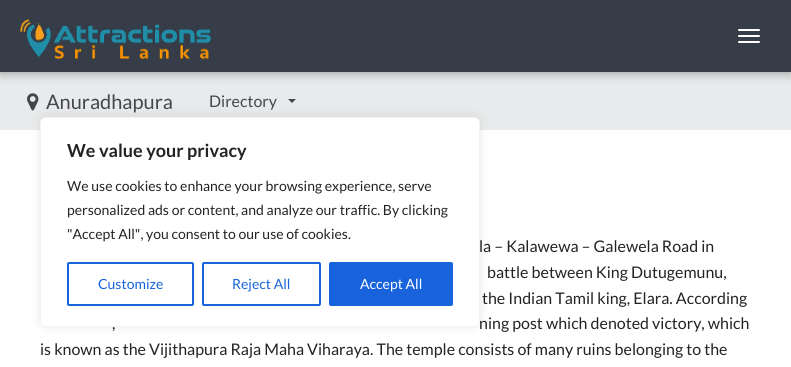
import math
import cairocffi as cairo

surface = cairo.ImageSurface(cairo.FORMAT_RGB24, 791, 367)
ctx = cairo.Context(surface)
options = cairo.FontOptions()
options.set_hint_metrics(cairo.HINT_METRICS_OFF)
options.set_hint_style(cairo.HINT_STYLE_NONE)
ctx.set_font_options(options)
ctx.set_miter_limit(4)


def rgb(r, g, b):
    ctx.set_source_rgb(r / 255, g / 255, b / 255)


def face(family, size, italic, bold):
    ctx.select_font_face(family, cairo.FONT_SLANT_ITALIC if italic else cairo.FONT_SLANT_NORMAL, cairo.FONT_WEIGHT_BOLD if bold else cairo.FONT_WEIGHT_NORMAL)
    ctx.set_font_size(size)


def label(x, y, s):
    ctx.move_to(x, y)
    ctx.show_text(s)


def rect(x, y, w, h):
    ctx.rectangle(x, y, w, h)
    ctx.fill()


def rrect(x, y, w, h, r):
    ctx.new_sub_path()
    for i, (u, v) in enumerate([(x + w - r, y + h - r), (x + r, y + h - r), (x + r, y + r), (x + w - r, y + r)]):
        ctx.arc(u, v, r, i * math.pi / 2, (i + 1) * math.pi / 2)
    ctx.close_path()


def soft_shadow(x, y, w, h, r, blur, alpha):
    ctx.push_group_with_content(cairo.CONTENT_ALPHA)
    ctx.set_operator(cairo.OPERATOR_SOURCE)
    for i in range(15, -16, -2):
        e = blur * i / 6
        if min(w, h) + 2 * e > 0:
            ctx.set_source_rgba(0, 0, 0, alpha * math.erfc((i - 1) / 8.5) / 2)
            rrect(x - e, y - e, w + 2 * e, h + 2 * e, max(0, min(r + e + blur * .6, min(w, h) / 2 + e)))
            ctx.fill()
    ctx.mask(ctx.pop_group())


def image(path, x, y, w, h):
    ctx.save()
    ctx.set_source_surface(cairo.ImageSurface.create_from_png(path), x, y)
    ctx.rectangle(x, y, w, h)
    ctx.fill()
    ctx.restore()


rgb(255, 255, 255)
ctx.paint()
rgb(233, 234, 235)
rect(0, 72, 791, 58)
rgb(0, 0, 0)
soft_shadow(0, 2, 791, 72, 0, 5, 0.3)
rgb(54, 60, 72)
rect(0, 0, 791, 72)
image('image0.png', 20, 19, 191, 41)
rgb(255, 255, 255)
rrect(738, 29, 22, 2, 1)
ctx.fill()
rrect(738, 35, 22, 2, 1)
ctx.fill()
rrect(738, 41, 22, 2, 1)
ctx.fill()
image('image1.png', 27, 93, 12, 18)
face('Lato', 20, 0, 0)
rgb(68, 70, 73)
label(46, 109, 'Anuradhapura')
face('Lato', 16, 0, 0)
label(209, 107, 'Directory')
ctx.new_path()
ctx.move_to(288, 99)
ctx.line_to(296, 99)
ctx.line_to(292, 103)
ctx.close_path()
ctx.fill()
rgb(172, 171, 171)
soft_shadow(40, 116, 440, 210, 6, 5, 0.3)
rgb(255, 255, 255)
rrect(40.5, 117.5, 439, 209, 5.5)
ctx.fill_preserve()
rgb(244, 244, 244)
ctx.set_line_width(1)
ctx.stroke()
face('Lato', 18, 0, 1)
rgb(34, 35, 36)
label(67, 157, 'We value your privacy')
face('Lato', 14, 0, 0)
label(67, 191, 'We use cookies to enhance your browsing experience, serve')
label(67, 215, 'personalized ads or content, and analyze our traffic. By clicking')
label(67, 239, '"Accept All", you consent to our use of cookies.')
rrect(68, 263, 125, 42, 1)
rgb(24, 99, 220)
ctx.set_line_width(2)
ctx.stroke()
label(98, 289, 'Customize')
rrect(203, 263, 117, 42, 1)
ctx.stroke()
label(232, 289, 'Reject All')
rrect(330, 263, 122, 42, 1)
ctx.fill_preserve()
ctx.stroke()
rgb(255, 255, 255)
label(360, 289, 'Accept All')
face('Lato', 16, 0, 0)
rgb(34, 35, 36)
label(479, 252, 'la – Kalawewa – Galewela Road in')
label(487, 278, 'battle between King Dutugemunu,')
label(482, 304, 'the Indian Tamil king, Elara. According')
label(112, 329, ',')
label(479, 329, 'ning post which denoted victory, which')
label(40, 355, 'is known as the Vijithapura Raja Maha Viharaya. The temple consists of many ruins belonging to the')
surface.write_to_png('render.png')
